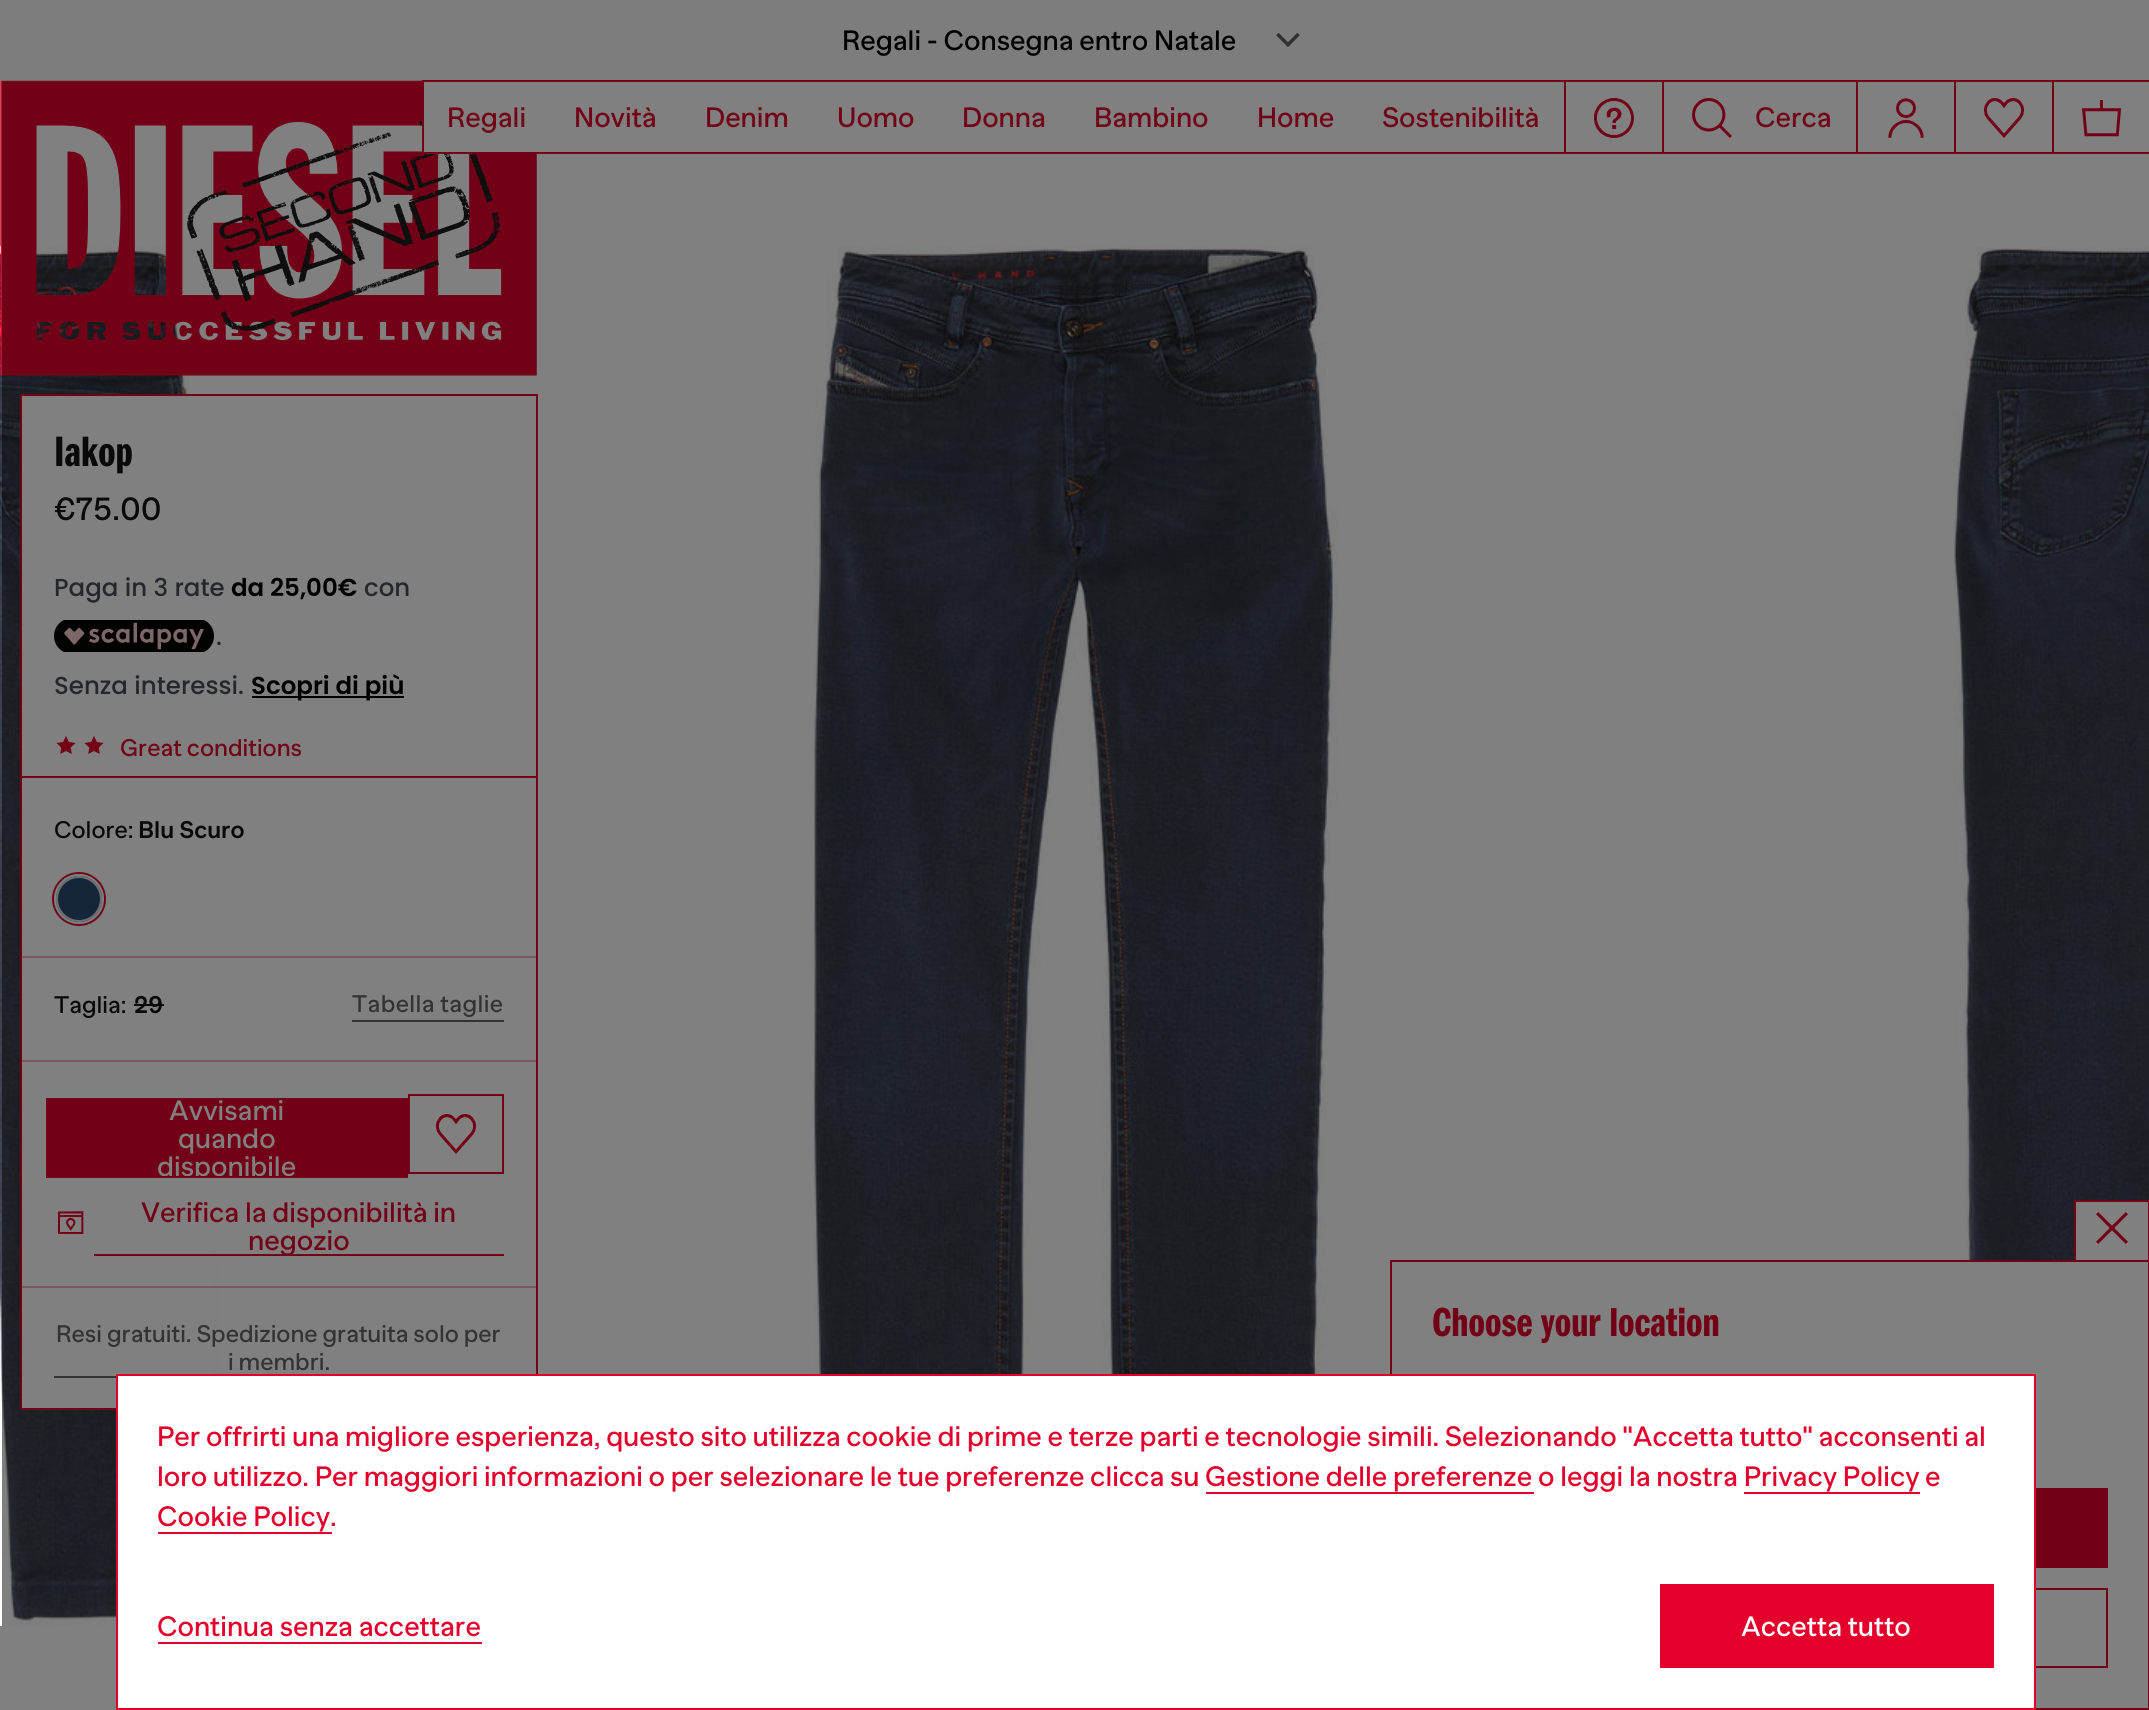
import math
import cairocffi as cairo

surface = cairo.ImageSurface(cairo.FORMAT_RGB24, 2149, 1710)
ctx = cairo.Context(surface)
options = cairo.FontOptions()
options.set_hint_metrics(cairo.HINT_METRICS_OFF)
options.set_hint_style(cairo.HINT_STYLE_NONE)
ctx.set_font_options(options)
ctx.set_miter_limit(4)


def rgb(r, g, b):
    ctx.set_source_rgb(r / 255, g / 255, b / 255)


def face(family, size, italic, bold):
    ctx.select_font_face(family, cairo.FONT_SLANT_ITALIC if italic else cairo.FONT_SLANT_NORMAL, cairo.FONT_WEIGHT_BOLD if bold else cairo.FONT_WEIGHT_NORMAL)
    ctx.set_font_size(size)


def label(x, y, s):
    ctx.move_to(x, y)
    ctx.show_text(s)


def tracked(x, y, s, letter, word):
    ctx.move_to(x, y)
    for ch in s:
        ctx.show_text(ch)
        ctx.rel_move_to(letter + word * (ch == ' '), 0)


def rect(x, y, w, h):
    ctx.rectangle(x, y, w, h)
    ctx.fill()


def image(path, x, y, w, h):
    ctx.save()
    ctx.set_source_surface(cairo.ImageSurface.create_from_png(path), x, y)
    ctx.rectangle(x, y, w, h)
    ctx.fill()
    ctx.restore()


rgb(128, 128, 128)
ctx.paint()
rgb(125, 125, 125)
rect(0, 0, 2149, 80)
face('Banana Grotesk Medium', 28, 0, 0)
rgb(0, 0, 0)
label(842, 50, 'Regali - Consegna entro Natale')
image('image0.png', 1276, 32, 24, 16)
image('image7.png', 0, 246, 224, 1380)
image('image1.png', 0, 80, 537, 296)
rgb(128, 128, 128)
rect(424, 82, 113, 70)
rgb(114, 0, 22)
rect(422, 80, 2, 74)
rect(424, 80, 1140, 2)
rect(424, 152, 1140, 2)
label(447, 127, 'Regali')
label(574, 127, 'Novità')
label(705, 127, 'Denim')
label(837, 127, 'Uomo')
label(962, 127, 'Donna')
label(1094, 127, 'Bambino')
label(1257, 127, 'Home')
label(1382, 127, 'Sostenibilità')
rect(1564, 80, 2, 74)
rect(1566, 80, 96, 2)
rect(1566, 152, 96, 2)
image('image2.png', 1594, 98, 40, 40)
rect(1662, 80, 2, 74)
rect(1664, 80, 192, 2)
rect(1664, 152, 192, 2)
image('image3.png', 1692, 98, 40, 40)
label(1755, 127, 'Cerca')
rect(1856, 80, 2, 74)
rect(1858, 80, 96, 2)
rect(1858, 152, 96, 2)
image('image4.png', 1888, 98, 36, 40)
rect(1954, 80, 2, 74)
rect(1956, 80, 96, 2)
rect(1956, 152, 96, 2)
image('image5.png', 1983, 98, 42, 40)
rect(2052, 80, 2, 74)
rect(2054, 80, 95, 2)
rect(2054, 152, 95, 2)
image('image6.png', 2082, 100, 40, 37)
image('image8.png', 813, 246, 526, 1128)
image('image9.png', 1953, 247, 196, 1013)
rgb(128, 128, 128)
rect(22, 396, 191, 1012)
ctx.rectangle(21, 395, 516, 1014)
rgb(114, 0, 22)
ctx.stroke()
face('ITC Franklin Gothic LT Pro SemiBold', 44, 0, 0)
rgb(9, 9, 9)
label(54, 466, 'Iakop')
face('Banana Grotesk Medium', 32, 0, 0)
label(54, 520, '€75.00')
face('Poppins Medium', 24.5, 0, 0)
rgb(37, 39, 45)
label(54, 596, 'Paga in 3 rate')
face('Poppins SemiBold', 24.5, 0, 0)
rgb(0, 0, 0)
label(231, 596, 'da 25,00€')
face('Poppins Medium', 24.5, 0, 0)
rgb(37, 39, 45)
label(364, 596, 'con')
image('image10.png', 54, 620, 160, 32)
label(216, 645, '.')
label(54, 694, 'Senza interessi.')
rgb(0, 0, 0)
rect(252, 696, 152, 2)
face('Poppins SemiBold', 24.5, 0, 0)
label(251, 694, 'Scopri di più')
image('image11.png', 56, 736, 20, 18)
image('image11.png', 84, 736, 20, 18)
face('Banana Grotesk Medium', 24, 0, 0)
rgb(114, 0, 22)
label(120, 756, 'Great conditions')
rect(22, 776, 514, 2)
rgb(124, 90, 96)
rect(22, 956, 514, 2)
rgb(9, 9, 9)
label(54, 838, 'Colore:')
face('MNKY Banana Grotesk', 24, 0, 1)
label(138, 838, 'Blu Scuro')
ctx.new_path()
ctx.arc(79, 899, 26, 0, 2 * math.pi)
rgb(114, 0, 22)
ctx.stroke()
rgb(22, 38, 58)
ctx.arc(79, 899, 25, 0, 2 * math.pi)
ctx.fill()
ctx.arc(79, 899, 22, 0, 2 * math.pi)
rgb(112, 112, 112)
ctx.stroke()
ctx.arc(79, 899, 24, 0, 2 * math.pi)
rgb(128, 128, 128)
ctx.stroke()
face('Banana Grotesk Medium', 24, 0, 0)
rgb(9, 9, 9)
label(54, 1013, 'Taglia:')
face('MNKY Banana Grotesk', 24, 0, 1)
label(134, 1013, '29')
rect(134, 1004, 30, 2)
face('Banana Grotesk Medium', 24, 0, 0)
rgb(51, 51, 51)
tracked(352, 1012, 'Tabella taglie', 0.4, 0)
rect(352, 1020, 152, 2)
rgb(124, 90, 96)
rect(22, 1060, 514, 2)
rgb(114, 0, 22)
rect(46, 1098, 362, 80)
face('Banana Grotesk Medium', 28, 0, 0)
rgb(128, 128, 128)
label(169, 1120, 'Avvisami')
label(178, 1148, 'quando')
ctx.save()
ctx.rectangle(48, 1100, 358, 76)
ctx.clip()
label(157, 1176, 'disponibile')
ctx.restore()
ctx.rectangle(409, 1095, 94, 78)
rgb(114, 0, 22)
ctx.stroke()
image('image5.png', 435, 1114, 42, 40)
image('image12.png', 58, 1211, 26, 23)
label(141, 1222, 'Verifica la disponibilità in')
label(248, 1250, 'negozio')
rect(94, 1254, 410, 2)
rgb(124, 90, 96)
rect(22, 1286, 514, 2)
face('Banana Grotesk Medium', 24, 0, 0)
rgb(51, 51, 51)
label(56, 1342, 'Resi gratuiti. Spedizione gratuita solo per')
label(228, 1370, 'i membri.')
rect(54, 1376, 62, 2)
rgb(128, 128, 128)
rect(2076, 1202, 72, 58)
rgb(114, 0, 22)
rect(2074, 1200, 75, 2)
rect(2148, 1200, 1, 60)
rect(2074, 1200, 2, 60)
image('image13.png', 2096, 1212, 32, 32)
ctx.rectangle(1391, 1261, 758, 448)
ctx.stroke()
face('ITC Franklin Gothic LT Pro SemiBold', 42, 0, 0)
label(1432, 1336, 'Choose your location')
rect(2036, 1488, 72, 80)
ctx.rectangle(1433, 1589, 674, 78)
ctx.stroke()
ctx.rectangle(117, 1375, 1918, 334)
rgb(228, 0, 43)
ctx.stroke()
rgb(255, 255, 255)
rect(118, 1376, 1916, 332)
face('Banana Grotesk Medium', 28, 0, 0)
rgb(228, 0, 43)
label(157, 1446, 'Per offrirti una migliore esperienza, questo sito utilizza cookie di prime e terze parti e tecnologie simili. Selezionando "Accetta tutto" acconsenti al')
label(157, 1486, 'loro utilizzo. Per maggiori informazioni o per selezionare le tue preferenze clicca su Gestione delle preferenze')
label(1538, 1486, 'o leggi la nostra Privacy Policy')
label(1925, 1486, 'e')
rect(1206, 1492, 328, 2)
rect(1744, 1492, 176, 2)
label(157, 1526, 'Cookie Policy')
rect(158, 1532, 174, 2)
label(330, 1526, '.')
label(157, 1636, 'Continua senza accettare')
rect(158, 1642, 324, 2)
rect(1660, 1584, 334, 84)
rgb(255, 255, 255)
label(1741, 1636, 'Accetta tutto')
surface.write_to_png('render.png')
